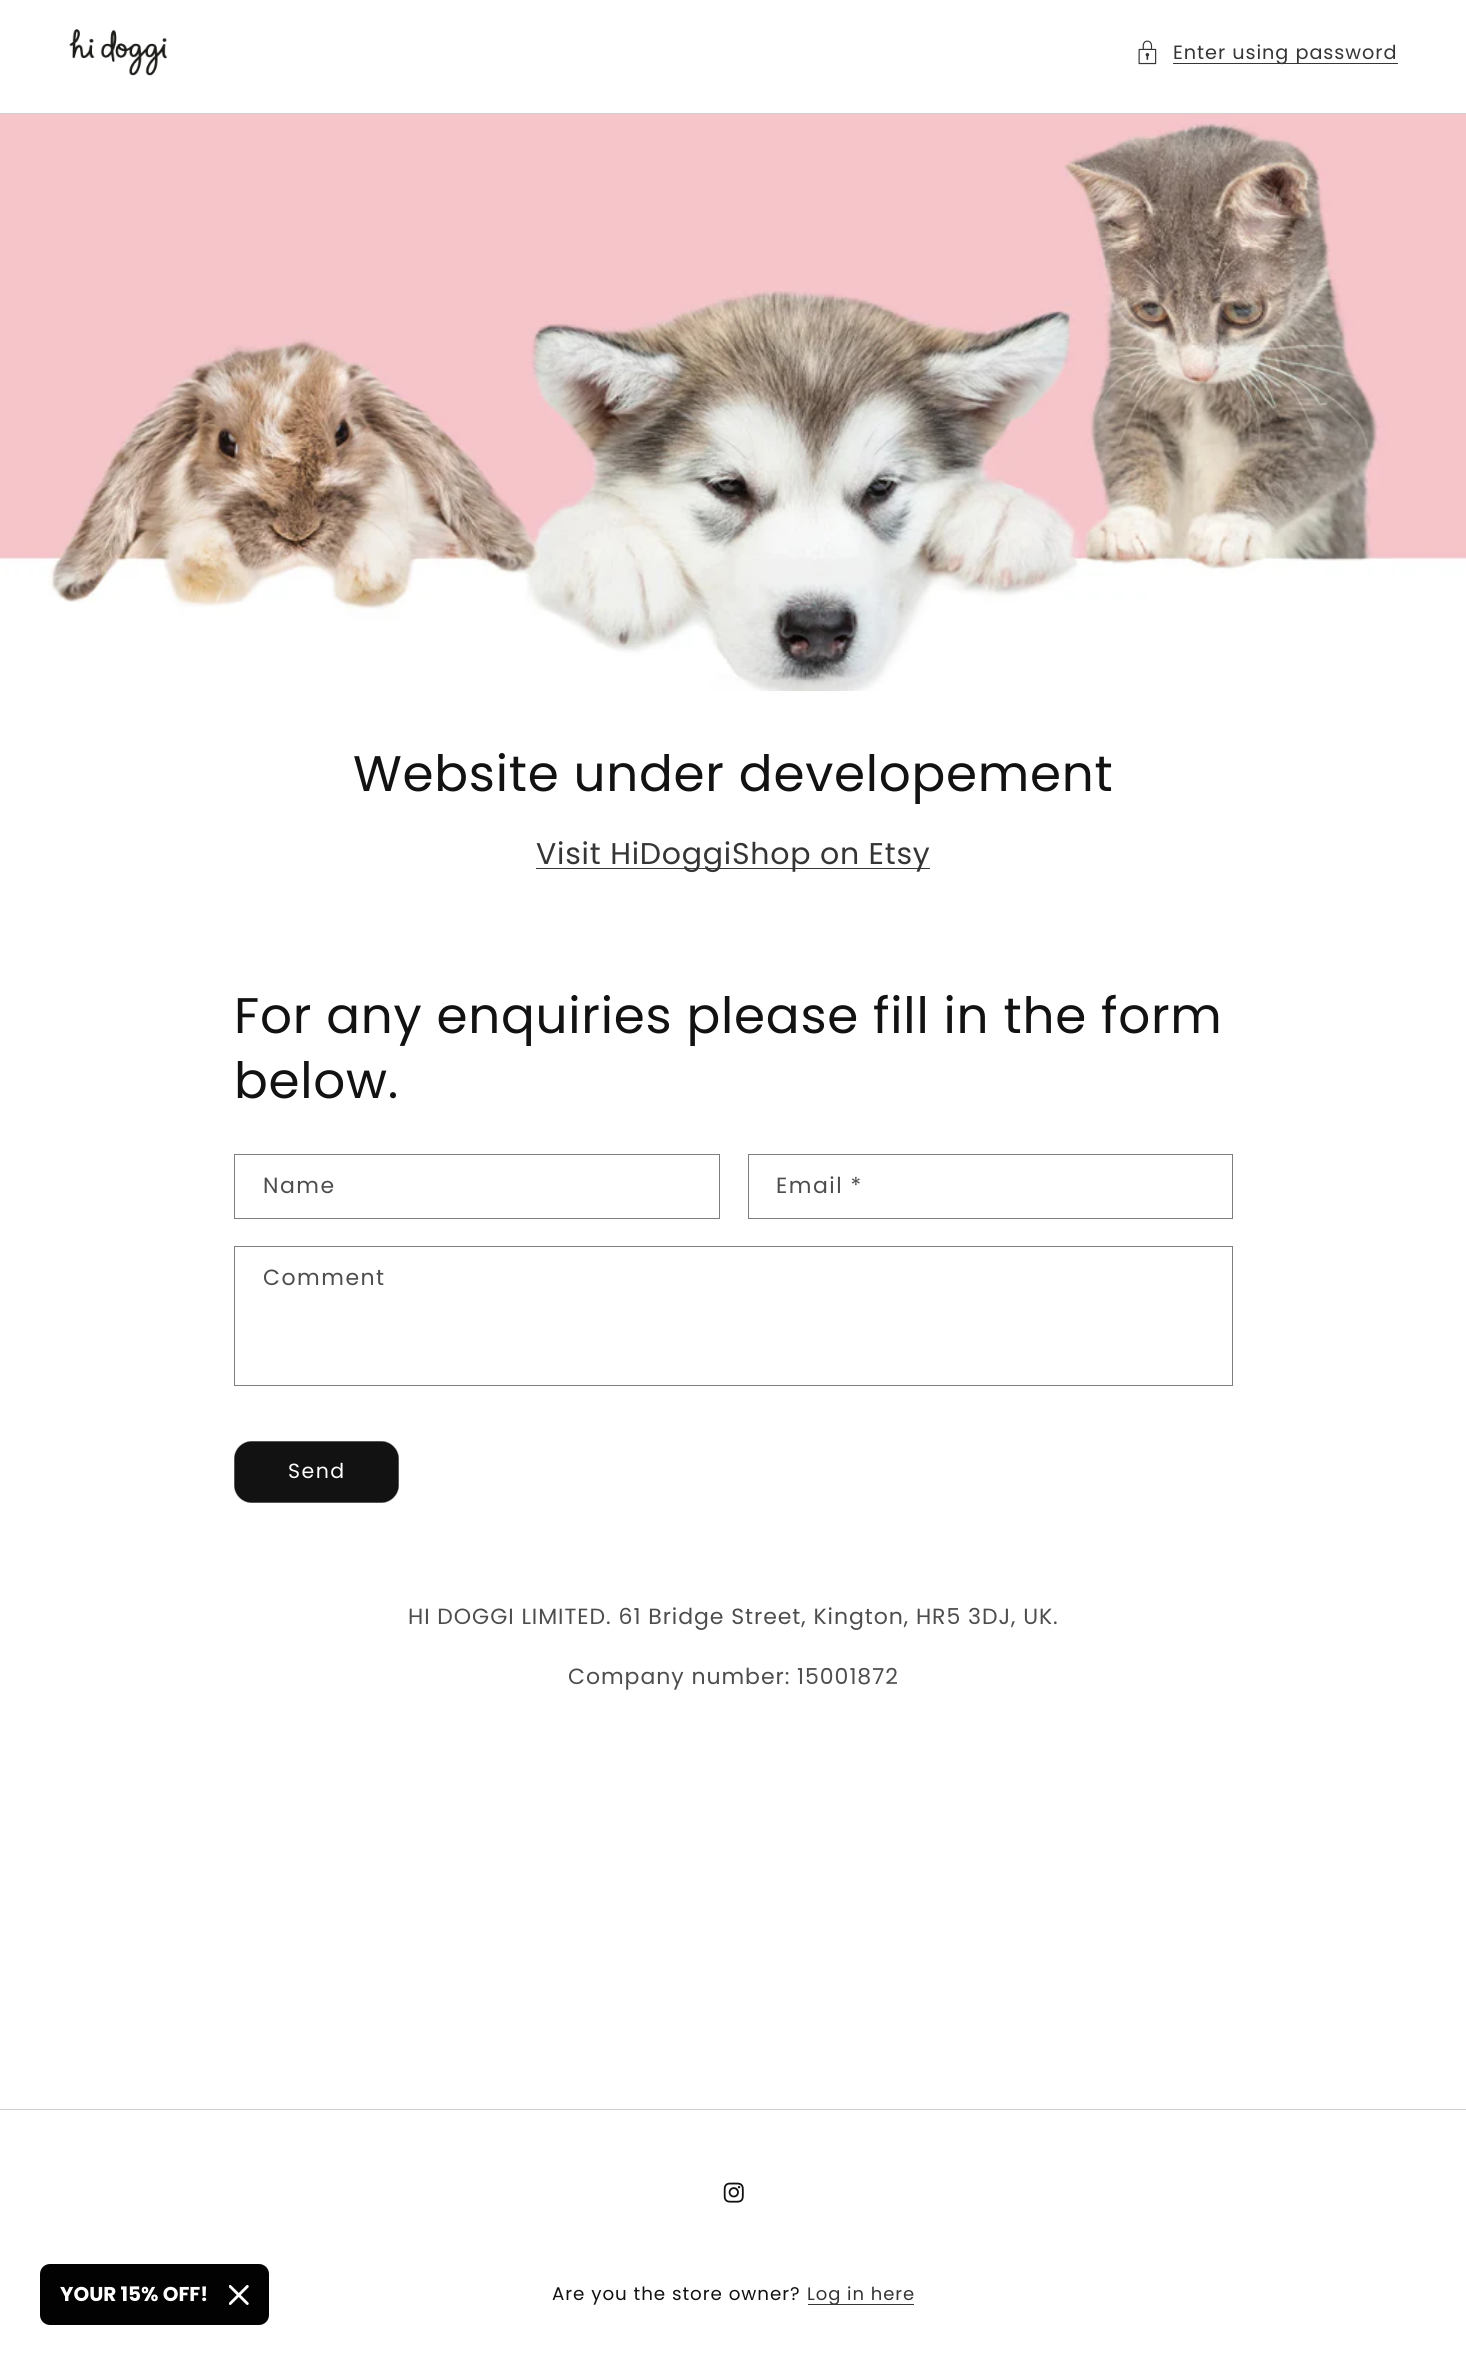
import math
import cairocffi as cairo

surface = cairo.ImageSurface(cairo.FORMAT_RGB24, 1466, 2365)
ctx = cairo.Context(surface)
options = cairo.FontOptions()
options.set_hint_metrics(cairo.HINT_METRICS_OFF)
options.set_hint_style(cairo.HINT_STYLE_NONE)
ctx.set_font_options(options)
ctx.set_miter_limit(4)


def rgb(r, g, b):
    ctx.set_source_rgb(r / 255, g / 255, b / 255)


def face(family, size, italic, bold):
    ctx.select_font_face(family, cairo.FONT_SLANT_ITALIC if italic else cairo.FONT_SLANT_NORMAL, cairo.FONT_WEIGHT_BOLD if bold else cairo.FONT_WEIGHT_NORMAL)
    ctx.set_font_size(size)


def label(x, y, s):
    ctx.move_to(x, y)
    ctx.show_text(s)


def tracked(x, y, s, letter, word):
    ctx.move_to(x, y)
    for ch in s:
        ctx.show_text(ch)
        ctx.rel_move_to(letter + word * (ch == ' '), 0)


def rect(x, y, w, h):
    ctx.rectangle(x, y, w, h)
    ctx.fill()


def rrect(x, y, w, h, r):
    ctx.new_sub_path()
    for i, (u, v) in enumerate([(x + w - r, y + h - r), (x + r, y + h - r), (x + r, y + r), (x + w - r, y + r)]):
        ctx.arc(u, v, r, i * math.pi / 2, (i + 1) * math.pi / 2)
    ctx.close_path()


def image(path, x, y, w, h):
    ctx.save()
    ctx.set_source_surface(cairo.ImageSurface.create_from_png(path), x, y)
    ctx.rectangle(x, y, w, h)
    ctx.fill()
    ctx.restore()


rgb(255, 255, 255)
ctx.paint()
image('image0.png', 69, 29, 99, 47)
image('image1.png', 1138, 40, 19, 25)
rgb(54, 54, 54)
rect(1173, 63, 225, 1)
face('Poppins', 19.25, 0, 0)
rgb(53, 53, 53)
tracked(1173, 59, 'Enter using password', 0.95, 0)
rgb(208, 208, 208)
rect(0, 113, 1466, 1)
image('image2.png', 0, 114, 1466, 577)
face('Poppins', 50, 0, 0)
rgb(18, 18, 18)
tracked(353, 791, 'Website under developement', 0.75, 0)
rgb(54, 54, 54)
rect(536, 868, 394, 1)
face('Poppins', 30, 0, 0)
rgb(53, 53, 53)
tracked(536, 864, 'Visit HiDoggiShop on Etsy', 0.75, 0)
face('Poppins', 50, 0, 0)
rgb(18, 18, 18)
tracked(234, 1033, 'For any enquiries please fill in the form', 0.75, 0)
tracked(234, 1098, 'below.', 0.75, 0)
ctx.rectangle(234.5, 1154.5, 485, 64)
rgb(125, 125, 125)
ctx.set_line_width(1)
ctx.stroke()
face('Poppins', 22, 0, 0)
rgb(77, 77, 77)
tracked(263, 1193, 'Name', 1.5, 0)
ctx.rectangle(748.5, 1154.5, 484, 64)
rgb(125, 125, 125)
ctx.stroke()
rgb(77, 77, 77)
tracked(776, 1193, 'Email *', 1.5, 0)
ctx.rectangle(234.5, 1246.5, 998, 139)
rgb(125, 125, 125)
ctx.stroke()
rgb(77, 77, 77)
tracked(263, 1285, 'Comment', 1.5, 0)
rgb(18, 18, 18)
rrect(234, 1441, 165, 62, 18)
ctx.fill()
rrect(234.2, 1441.2, 164.6, 61.6, 17.8)
ctx.set_source_rgba(1, 1, 1, 0.7)
ctx.set_line_width(0.4)
ctx.stroke()
face('Poppins', 20.5, 0, 0)
rgb(255, 255, 255)
tracked(288, 1478, 'Send', 1.5, 0)
face('Poppins', 22, 0, 0)
rgb(77, 77, 77)
tracked(408, 1624, 'HI DOGGI LIMITED. 61 Bridge Street, Kington, HR5 3DJ, UK.', 0.95, 0)
tracked(568, 1684, 'Company number: 15001872', 0.95, 0)
rgb(2, 2, 2)
rrect(40, 2264, 229, 61, 10)
ctx.fill()
face('Poppins', 20, 0, 1)
rgb(255, 255, 255)
label(60, 2301, 'YOUR 15% OFF!')
image('image3.png', 229, 2285, 20, 20)
rgb(208, 208, 208)
rect(0, 2109, 1466, 1)
image('image4.png', 723, 2182, 21, 21)
face('Poppins', 18.3, 0, 0)
rgb(18, 18, 18)
tracked(552, 2300, 'Are you the store owner?', 0.95, 0)
rgb(54, 54, 54)
rect(808, 2304, 106, 1)
face('Poppins', 18, 0, 0)
rgb(53, 53, 53)
tracked(807, 2300, 'Log in here', 0.95, 0)
surface.write_to_png('render.png')
